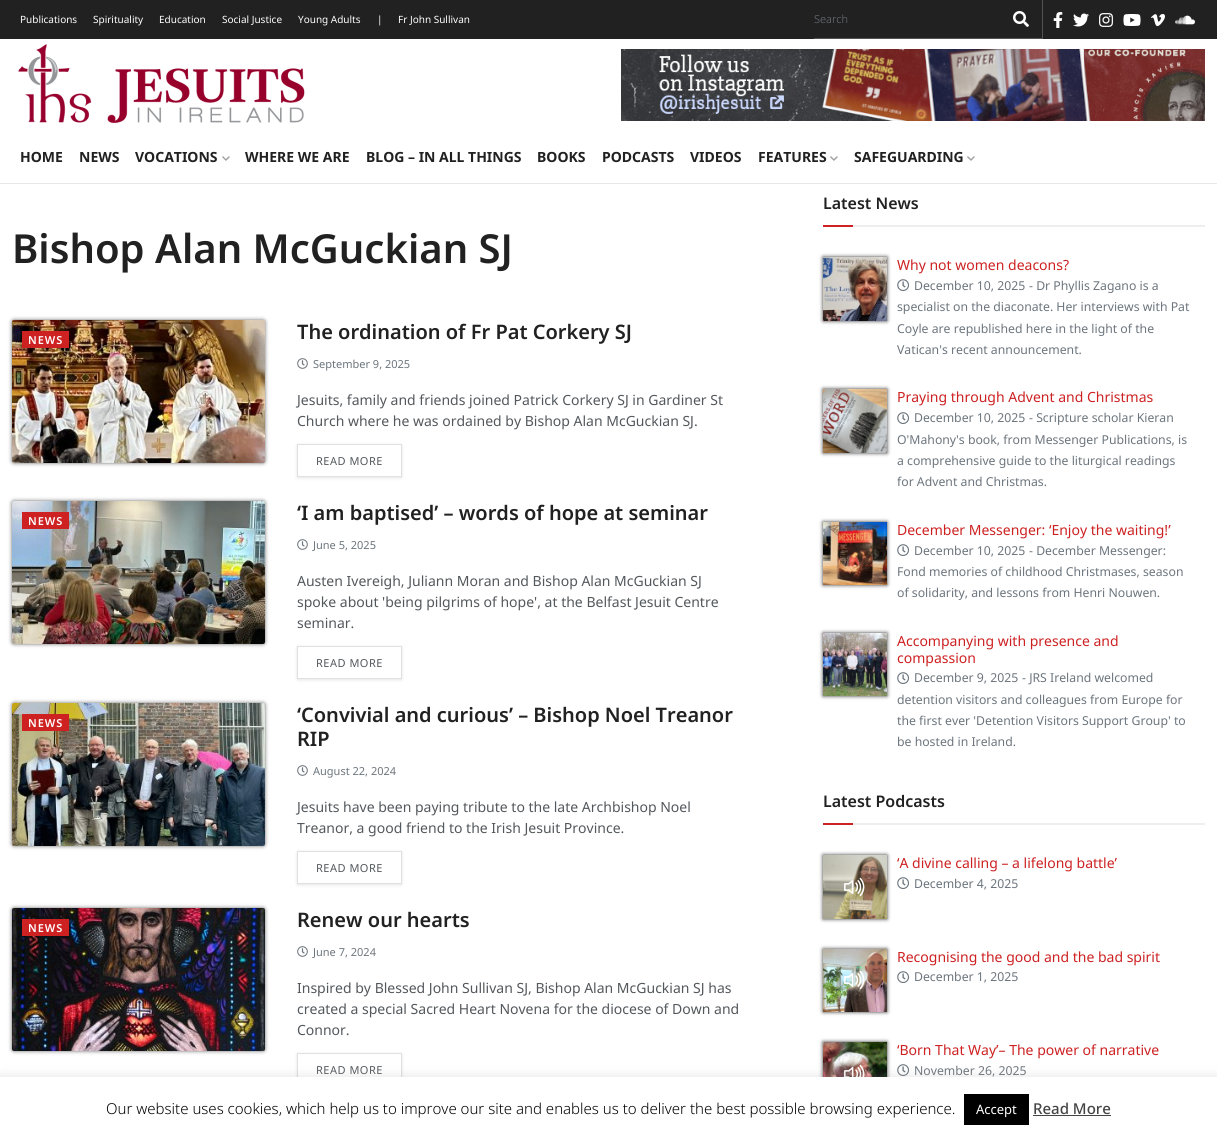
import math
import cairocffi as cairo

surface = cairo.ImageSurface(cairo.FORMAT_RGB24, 1217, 1137)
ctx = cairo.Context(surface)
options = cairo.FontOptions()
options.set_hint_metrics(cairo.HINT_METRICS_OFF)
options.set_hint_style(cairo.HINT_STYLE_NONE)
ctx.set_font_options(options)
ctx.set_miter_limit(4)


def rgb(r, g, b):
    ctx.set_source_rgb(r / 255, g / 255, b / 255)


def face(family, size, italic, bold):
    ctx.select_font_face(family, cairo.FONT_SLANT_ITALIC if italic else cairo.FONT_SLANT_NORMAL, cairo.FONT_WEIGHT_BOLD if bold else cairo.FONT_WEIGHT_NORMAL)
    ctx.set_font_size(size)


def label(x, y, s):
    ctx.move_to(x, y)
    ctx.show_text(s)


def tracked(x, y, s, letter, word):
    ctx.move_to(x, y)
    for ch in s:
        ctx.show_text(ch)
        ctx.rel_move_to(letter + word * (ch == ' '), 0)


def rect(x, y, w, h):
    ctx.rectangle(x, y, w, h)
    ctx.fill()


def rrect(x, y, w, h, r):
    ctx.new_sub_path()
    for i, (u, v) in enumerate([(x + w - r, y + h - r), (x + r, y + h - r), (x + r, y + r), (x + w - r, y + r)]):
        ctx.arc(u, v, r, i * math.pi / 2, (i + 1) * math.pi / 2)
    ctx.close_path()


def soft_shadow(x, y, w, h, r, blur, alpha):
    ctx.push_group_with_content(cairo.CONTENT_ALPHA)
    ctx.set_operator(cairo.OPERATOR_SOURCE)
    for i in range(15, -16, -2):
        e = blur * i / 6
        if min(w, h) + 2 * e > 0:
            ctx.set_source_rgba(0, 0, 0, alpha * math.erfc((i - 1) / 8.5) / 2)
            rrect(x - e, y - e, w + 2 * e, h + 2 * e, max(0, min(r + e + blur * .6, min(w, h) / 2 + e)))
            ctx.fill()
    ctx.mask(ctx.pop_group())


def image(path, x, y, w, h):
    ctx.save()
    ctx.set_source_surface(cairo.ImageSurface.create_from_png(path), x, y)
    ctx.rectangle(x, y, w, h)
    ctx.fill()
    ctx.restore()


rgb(255, 255, 255)
ctx.paint()
rgb(33, 33, 33)
rect(0, 0, 1217, 39)
face('Noto Sans', 10, 0, 0)
rgb(255, 255, 255)
label(20, 23, 'Publications')
label(93, 23, 'Spirituality')
label(159, 23, 'Education')
label(222, 23, 'Social Justice')
label(298, 23, 'Young Adults')
label(377, 23, '|')
label(398, 23, 'Fr John Sullivan')
rgb(84, 84, 84)
rect(1042, 0, 1, 39)
rect(814, 38, 229, 1)
face('Noto Sans Light', 11, 0, 0)
rgb(108, 117, 125)
label(814, 23, 'Search')
image('image0.png', 1013, 11, 16, 16)
image('image1.png', 1053, 12, 10, 16)
image('image2.png', 1073, 13, 16, 14)
image('image3.png', 1099, 13, 14, 14)
image('image4.png', 1123, 14, 18, 12)
image('image5.png', 1151, 14, 14, 13)
image('image6.png', 1175, 15, 20, 10)
image('image7.png', 18, 44, 287, 80)
image('image8.png', 621, 49, 584, 72)
rgb(232, 232, 232)
rect(0, 183, 1217, 1)
face('Noto Sans', 14, 0, 1)
rgb(33, 33, 33)
label(20, 162, 'HOME')
label(79, 162, 'NEWS')
label(135, 162, 'VOCATIONS')
image('image9.png', 222, 156, 8, 5)
label(245, 162, 'WHERE WE ARE')
label(366, 162, 'BLOG – IN ALL THINGS')
label(537, 162, 'BOOKS')
label(602, 162, 'PODCASTS')
label(690, 162, 'VIDEOS')
label(758, 162, 'FEATURES')
image('image9.png', 830, 156, 8, 5)
label(854, 162, 'SAFEGUARDING')
image('image9.png', 967, 156, 8, 5)
face('Noto Sans SemiBold', 40, 0, 0)
label(12, 263, 'Bishop Alan McGuckian SJ')
rgb(0, 0, 0)
soft_shadow(12, 320, 253, 143, 2, 2, 0.6)
image('image10.png', 12, 320, 253, 143)
rgb(205, 33, 34)
rect(22, 331, 47, 17)
face('Noto Sans SemiBold', 11, 0, 0)
rgb(255, 255, 255)
tracked(28, 344, 'NEWS', 1, 0)
face('Noto Sans SemiBold', 20, 0, 0)
rgb(33, 33, 33)
label(297, 339, 'The ordination of Fr Pat Corkery SJ')
image('image11.png', 297, 358, 11, 11)
face('Noto Sans', 11, 0, 0)
rgb(108, 117, 125)
label(313, 368, 'September 9, 2025')
face('Noto Sans', 14, 0, 0)
rgb(83, 88, 92)
label(297, 405, 'Jesuits, family and friends joined Patrick Corkery SJ in Gardiner St')
label(297, 426, 'Church where he was ordained by Bishop Alan McGuckian SJ.')
ctx.save()
ctx.set_fill_rule(cairo.FILL_RULE_EVEN_ODD)
ctx.new_path()
ctx.move_to(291, 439)
ctx.line_to(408, 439)
ctx.line_to(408, 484)
ctx.line_to(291, 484)
ctx.close_path()
ctx.move_to(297, 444)
ctx.line_to(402, 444)
ctx.line_to(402, 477)
ctx.line_to(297, 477)
ctx.close_path()
ctx.clip()
rgb(0, 0, 0)
soft_shadow(297, 445, 105, 33, 0, 1.5, 0.1)
ctx.restore()
ctx.rectangle(297.5, 444.5, 104, 32)
rgb(224, 224, 224)
ctx.set_line_width(1)
ctx.stroke()
face('Noto Sans', 11, 0, 0)
rgb(83, 88, 92)
tracked(316, 465, 'READ MORE', 0.5, 0)
rgb(0, 0, 0)
soft_shadow(12, 501, 253, 143, 2, 2, 0.6)
image('image12.png', 12, 501, 253, 143)
rgb(205, 33, 34)
rect(22, 512, 47, 17)
face('Noto Sans SemiBold', 11, 0, 0)
rgb(255, 255, 255)
tracked(28, 525, 'NEWS', 1, 0)
face('Noto Sans SemiBold', 20, 0, 0)
rgb(33, 33, 33)
label(297, 520, '‘I am baptised’ – words of hope at seminar')
image('image11.png', 297, 539, 11, 11)
face('Noto Sans', 11, 0, 0)
rgb(108, 117, 125)
label(313, 549, 'June 5, 2025')
face('Noto Sans', 14, 0, 0)
rgb(83, 88, 92)
label(297, 586, 'Austen Ivereigh, Juliann Moran and Bishop Alan McGuckian SJ')
label(297, 607, 'spoke about \'being pilgrims of hope\', at the Belfast Jesuit Centre')
label(297, 628, 'seminar.')
ctx.save()
ctx.set_fill_rule(cairo.FILL_RULE_EVEN_ODD)
ctx.new_path()
ctx.move_to(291, 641)
ctx.line_to(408, 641)
ctx.line_to(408, 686)
ctx.line_to(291, 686)
ctx.close_path()
ctx.move_to(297, 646)
ctx.line_to(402, 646)
ctx.line_to(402, 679)
ctx.line_to(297, 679)
ctx.close_path()
ctx.clip()
rgb(0, 0, 0)
soft_shadow(297, 647, 105, 33, 0, 1.5, 0.1)
ctx.restore()
ctx.rectangle(297.5, 646.5, 104, 32)
rgb(224, 224, 224)
ctx.stroke()
face('Noto Sans', 11, 0, 0)
rgb(83, 88, 92)
tracked(316, 667, 'READ MORE', 0.5, 0)
rgb(0, 0, 0)
soft_shadow(12, 703, 253, 143, 2, 2, 0.6)
image('image13.png', 12, 703, 253, 143)
rgb(205, 33, 34)
rect(22, 714, 47, 17)
face('Noto Sans SemiBold', 11, 0, 0)
rgb(255, 255, 255)
tracked(28, 727, 'NEWS', 1, 0)
face('Noto Sans SemiBold', 20, 0, 0)
rgb(33, 33, 33)
label(297, 722, '‘Convivial and curious’ – Bishop Noel Treanor')
label(297, 746, 'RIP')
image('image11.png', 297, 765, 11, 11)
face('Noto Sans', 11, 0, 0)
rgb(108, 117, 125)
label(313, 775, 'August 22, 2024')
face('Noto Sans', 14, 0, 0)
rgb(83, 88, 92)
label(297, 812, 'Jesuits have been paying tribute to the late Archbishop Noel')
label(297, 833, 'Treanor, a good friend to the Irish Jesuit Province.')
ctx.save()
ctx.set_fill_rule(cairo.FILL_RULE_EVEN_ODD)
ctx.new_path()
ctx.move_to(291, 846)
ctx.line_to(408, 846)
ctx.line_to(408, 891)
ctx.line_to(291, 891)
ctx.close_path()
ctx.move_to(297, 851)
ctx.line_to(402, 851)
ctx.line_to(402, 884)
ctx.line_to(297, 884)
ctx.close_path()
ctx.clip()
rgb(0, 0, 0)
soft_shadow(297, 852, 105, 33, 0, 1.5, 0.1)
ctx.restore()
ctx.rectangle(297.5, 851.5, 104, 32)
rgb(224, 224, 224)
ctx.stroke()
face('Noto Sans', 11, 0, 0)
rgb(83, 88, 92)
tracked(316, 872, 'READ MORE', 0.5, 0)
rgb(0, 0, 0)
soft_shadow(12, 908, 253, 143, 2, 2, 0.6)
image('image14.png', 12, 908, 253, 143)
rgb(205, 33, 34)
rect(22, 919, 47, 17)
face('Noto Sans SemiBold', 11, 0, 0)
rgb(255, 255, 255)
tracked(28, 932, 'NEWS', 1, 0)
face('Noto Sans SemiBold', 20, 0, 0)
rgb(33, 33, 33)
label(297, 927, 'Renew our hearts')
image('image11.png', 297, 946, 11, 11)
face('Noto Sans', 11, 0, 0)
rgb(108, 117, 125)
label(313, 956, 'June 7, 2024')
face('Noto Sans', 14, 0, 0)
rgb(83, 88, 92)
label(297, 993, 'Inspired by Blessed John Sullivan SJ, Bishop Alan McGuckian SJ has')
label(297, 1014, 'created a special Sacred Heart Novena for the diocese of Down and')
label(297, 1035, 'Connor.')
ctx.save()
ctx.set_fill_rule(cairo.FILL_RULE_EVEN_ODD)
ctx.new_path()
ctx.move_to(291, 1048)
ctx.line_to(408, 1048)
ctx.line_to(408, 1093)
ctx.line_to(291, 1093)
ctx.close_path()
ctx.move_to(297, 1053)
ctx.line_to(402, 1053)
ctx.line_to(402, 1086)
ctx.line_to(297, 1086)
ctx.close_path()
ctx.clip()
rgb(0, 0, 0)
soft_shadow(297, 1054, 105, 33, 0, 1.5, 0.1)
ctx.restore()
ctx.rectangle(297.5, 1053.5, 104, 32)
rgb(224, 224, 224)
ctx.stroke()
face('Noto Sans', 11, 0, 0)
rgb(83, 88, 92)
tracked(316, 1074, 'READ MORE', 0.5, 0)
rgb(238, 238, 238)
rect(853, 225, 352, 2)
face('Noto Sans SemiBold', 16, 0, 0)
rgb(33, 33, 33)
label(823, 209, 'Latest News')
rgb(205, 33, 34)
rect(823, 225, 30, 2)
image('image15.png', 823, 257, 64, 64)
ctx.save()
ctx.set_fill_rule(cairo.FILL_RULE_EVEN_ODD)
ctx.new_path()
ctx.move_to(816, 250)
ctx.line_to(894, 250)
ctx.line_to(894, 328)
ctx.line_to(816, 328)
ctx.close_path()
ctx.move_to(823, 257)
ctx.line_to(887, 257)
ctx.line_to(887, 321)
ctx.line_to(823, 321)
ctx.close_path()
ctx.clip()
rgb(0, 0, 0)
soft_shadow(823, 257, 64, 64, 0, 2, 0.8)
ctx.restore()
face('Noto Sans', 14, 0, 0)
label(897, 270, 'Why not women deacons?')
image('image16.png', 897, 279, 12, 12)
face('Noto Sans', 12.25, 0, 0)
rgb(108, 117, 125)
label(914, 290, 'December 10, 2025')
label(1029, 290, '- Dr Phyllis Zagano is a')
label(897, 311, 'specialist on the diaconate. Her interviews with Pat')
label(897, 333, 'Coyle are republished here in the light of the')
label(897, 354, 'Vatican\'s recent announcement.')
image('image17.png', 823, 389, 64, 64)
ctx.save()
ctx.set_fill_rule(cairo.FILL_RULE_EVEN_ODD)
ctx.new_path()
ctx.move_to(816, 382)
ctx.line_to(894, 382)
ctx.line_to(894, 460)
ctx.line_to(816, 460)
ctx.close_path()
ctx.move_to(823, 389)
ctx.line_to(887, 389)
ctx.line_to(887, 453)
ctx.line_to(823, 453)
ctx.close_path()
ctx.clip()
rgb(0, 0, 0)
soft_shadow(823, 389, 64, 64, 0, 2, 0.8)
ctx.restore()
face('Noto Sans', 14, 0, 0)
rgb(205, 33, 34)
label(897, 402, 'Praying through Advent and Christmas')
image('image16.png', 897, 412, 12, 12)
face('Noto Sans', 12.25, 0, 0)
rgb(108, 117, 125)
label(914, 422, 'December 10, 2025')
label(1029, 422, '- Scripture scholar Kieran')
label(897, 444, 'O\'Mahony\'s book, from Messenger Publications, is')
label(897, 465, 'a comprehensive guide to the liturgical readings')
label(897, 486, 'for Advent and Christmas.')
image('image18.png', 823, 522, 64, 63)
ctx.save()
ctx.set_fill_rule(cairo.FILL_RULE_EVEN_ODD)
ctx.new_path()
ctx.move_to(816, 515)
ctx.line_to(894, 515)
ctx.line_to(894, 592)
ctx.line_to(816, 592)
ctx.close_path()
ctx.move_to(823, 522)
ctx.line_to(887, 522)
ctx.line_to(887, 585)
ctx.line_to(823, 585)
ctx.close_path()
ctx.clip()
rgb(0, 0, 0)
soft_shadow(823, 522, 64, 63, 0, 2, 0.8)
ctx.restore()
face('Noto Sans', 14, 0, 0)
rgb(205, 33, 34)
label(897, 535, 'December Messenger: ‘Enjoy the waiting!’')
image('image16.png', 897, 544, 12, 12)
face('Noto Sans', 12.25, 0, 0)
rgb(108, 117, 125)
label(914, 555, 'December 10, 2025')
label(1029, 555, '- December Messenger:')
label(897, 576, 'Fond memories of childhood Christmases, season')
label(897, 597, 'of solidarity, and lessons from Henri Nouwen.')
image('image19.png', 823, 633, 64, 63)
ctx.save()
ctx.set_fill_rule(cairo.FILL_RULE_EVEN_ODD)
ctx.new_path()
ctx.move_to(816, 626)
ctx.line_to(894, 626)
ctx.line_to(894, 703)
ctx.line_to(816, 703)
ctx.close_path()
ctx.move_to(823, 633)
ctx.line_to(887, 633)
ctx.line_to(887, 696)
ctx.line_to(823, 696)
ctx.close_path()
ctx.clip()
rgb(0, 0, 0)
soft_shadow(823, 633, 64, 63, 0, 2, 0.8)
ctx.restore()
face('Noto Sans', 14, 0, 0)
rgb(205, 33, 34)
label(897, 646, 'Accompanying with presence and')
label(897, 663, 'compassion')
image('image16.png', 897, 672, 12, 12)
face('Noto Sans', 12.25, 0, 0)
rgb(108, 117, 125)
label(914, 682, 'December 9, 2025')
label(1022, 682, '- JRS Ireland welcomed')
label(897, 704, 'detention visitors and colleagues from Europe for')
label(897, 725, 'the first ever \'Detention Visitors Support Group\' to')
label(897, 746, 'be hosted in Ireland.')
rgb(238, 238, 238)
rect(853, 823, 352, 2)
face('Noto Sans SemiBold', 16, 0, 0)
rgb(33, 33, 33)
label(823, 807, 'Latest Podcasts')
rgb(205, 33, 34)
rect(823, 823, 30, 2)
image('image21.png', 823, 855, 64, 64)
ctx.save()
ctx.set_fill_rule(cairo.FILL_RULE_EVEN_ODD)
ctx.new_path()
ctx.move_to(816, 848)
ctx.line_to(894, 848)
ctx.line_to(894, 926)
ctx.line_to(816, 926)
ctx.close_path()
ctx.move_to(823, 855)
ctx.line_to(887, 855)
ctx.line_to(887, 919)
ctx.line_to(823, 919)
ctx.close_path()
ctx.clip()
rgb(0, 0, 0)
soft_shadow(823, 855, 64, 64, 0, 2, 0.8)
ctx.restore()
image('image20.png', 844, 877, 21, 20)
face('Noto Sans', 14, 0, 0)
label(897, 868, '‘A divine calling – a lifelong battle’')
image('image16.png', 897, 877, 12, 12)
face('Noto Sans', 12.25, 0, 0)
rgb(108, 117, 125)
label(914, 888, 'December 4, 2025')
image('image23.png', 823, 949, 64, 63)
ctx.save()
ctx.set_fill_rule(cairo.FILL_RULE_EVEN_ODD)
ctx.new_path()
ctx.move_to(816, 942)
ctx.line_to(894, 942)
ctx.line_to(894, 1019)
ctx.line_to(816, 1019)
ctx.close_path()
ctx.move_to(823, 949)
ctx.line_to(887, 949)
ctx.line_to(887, 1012)
ctx.line_to(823, 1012)
ctx.close_path()
ctx.clip()
rgb(0, 0, 0)
soft_shadow(823, 949, 64, 63, 0, 2, 0.8)
ctx.restore()
image('image22.png', 844, 970, 21, 20)
face('Noto Sans', 14, 0, 0)
rgb(205, 33, 34)
label(897, 962, 'Recognising the good and the bad spirit')
image('image16.png', 897, 971, 12, 12)
face('Noto Sans', 12.25, 0, 0)
rgb(108, 117, 125)
label(914, 981, 'December 1, 2025')
image('image25.png', 823, 1042, 64, 35)
ctx.save()
ctx.set_fill_rule(cairo.FILL_RULE_EVEN_ODD)
ctx.new_path()
ctx.move_to(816, 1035)
ctx.line_to(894, 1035)
ctx.line_to(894, 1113)
ctx.line_to(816, 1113)
ctx.close_path()
ctx.move_to(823, 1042)
ctx.line_to(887, 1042)
ctx.line_to(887, 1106)
ctx.line_to(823, 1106)
ctx.close_path()
ctx.clip()
rgb(0, 0, 0)
soft_shadow(823, 1042, 64, 64, 0, 2, 0.8)
ctx.restore()
image('image24.png', 844, 1064, 21, 13)
face('Noto Sans', 14, 0, 0)
rgb(205, 33, 34)
label(897, 1055, '‘Born That Way’– The power of narrative')
image('image16.png', 897, 1064, 12, 12)
face('Noto Sans', 12.25, 0, 0)
rgb(108, 117, 125)
label(914, 1075, 'November 26, 2025')
rgb(172, 171, 171)
soft_shadow(0, 1076, 1217, 60, 0, 5, 0.3)
rgb(255, 255, 255)
rect(0, 1077, 1217, 60)
face('Noto Sans Light', 15, 0, 0)
rgb(0, 0, 0)
label(106, 1114, 'Our website uses cookies, which help us to improve our site and enables us to deliver the best possible browsing experience.')
rect(964, 1094, 65, 31)
face('Noto Sans', 13, 0, 0)
rgb(255, 255, 255)
label(976, 1114, 'Accept')
face('Noto Sans Medium', 15, 0, 0)
rgb(68, 68, 68)
label(1033, 1114, 'Read More')
rect(1033, 1115, 78, 1)
surface.write_to_png('render.png')
